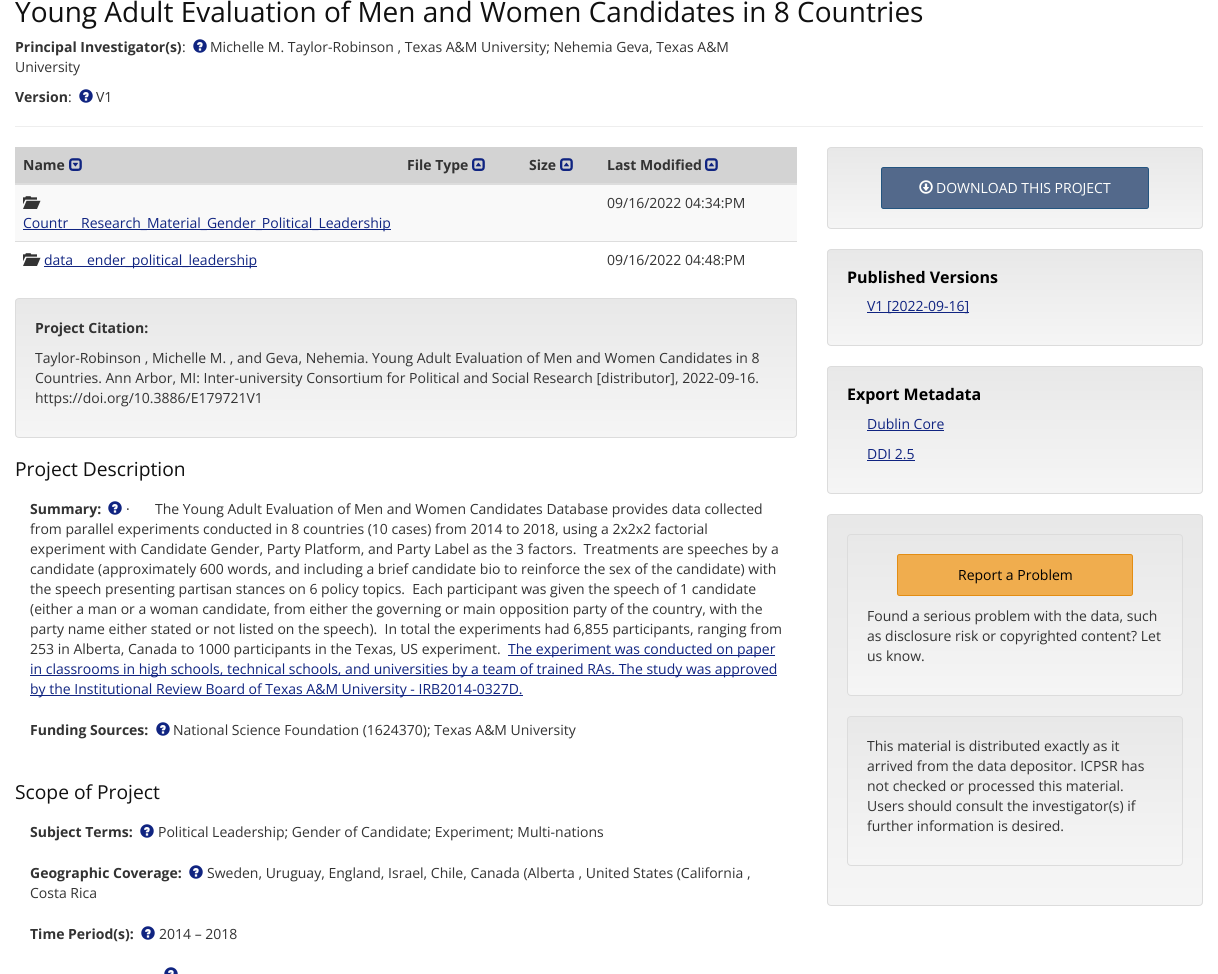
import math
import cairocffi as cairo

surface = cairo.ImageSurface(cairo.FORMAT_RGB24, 1218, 974)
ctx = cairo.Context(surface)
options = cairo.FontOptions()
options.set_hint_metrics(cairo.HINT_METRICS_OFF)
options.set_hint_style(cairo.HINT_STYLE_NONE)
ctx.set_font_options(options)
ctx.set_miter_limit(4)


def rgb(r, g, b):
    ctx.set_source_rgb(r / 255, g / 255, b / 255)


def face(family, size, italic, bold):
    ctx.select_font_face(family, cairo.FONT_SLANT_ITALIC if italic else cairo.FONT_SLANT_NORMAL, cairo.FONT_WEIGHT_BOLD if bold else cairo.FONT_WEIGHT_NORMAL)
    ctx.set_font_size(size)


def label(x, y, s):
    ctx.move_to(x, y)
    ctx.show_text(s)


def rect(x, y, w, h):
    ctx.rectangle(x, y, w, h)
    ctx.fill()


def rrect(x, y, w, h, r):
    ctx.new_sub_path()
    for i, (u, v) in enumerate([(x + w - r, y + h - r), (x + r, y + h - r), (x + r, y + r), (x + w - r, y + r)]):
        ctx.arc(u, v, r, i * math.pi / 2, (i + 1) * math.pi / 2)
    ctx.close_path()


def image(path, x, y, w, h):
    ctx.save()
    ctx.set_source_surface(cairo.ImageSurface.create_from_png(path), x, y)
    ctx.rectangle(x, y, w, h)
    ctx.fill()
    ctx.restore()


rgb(255, 255, 255)
ctx.paint()
rgb(238, 238, 238)
rect(15, 126, 1188, 1)
face('Open Sans', 28, 0, 0)
rgb(16, 16, 16)
label(15, 22, 'Young Adult Evaluation of Men and Women Candidates in 8 Countries')
face('Open Sans', 14, 0, 1)
rgb(51, 51, 51)
label(15, 52, 'Principal Investigator(s)')
face('Open Sans', 14, 0, 0)
label(182, 52, ':')
image('image0.png', 193, 39, 14, 14)
label(210, 52, 'Michelle M. Taylor-Robinson , Texas A&M University; Nehemia Geva, Texas A&M')
label(15, 72, 'University')
face('Open Sans', 14, 0, 1)
label(15, 102, 'Version')
face('Open Sans', 14, 0, 0)
label(68, 102, ':')
image('image0.png', 79, 89, 14, 14)
label(96, 102, 'V1')
rgb(211, 211, 211)
rect(15, 147, 782, 36)
face('Open Sans', 14, 0, 1)
rgb(51, 51, 51)
label(23, 170, 'Name')
image('image1.png', 69, 158, 13, 13)
label(407, 170, 'File Type')
image('image2.png', 472, 158, 13, 13)
label(529, 170, 'Size')
image('image2.png', 560, 158, 13, 13)
rgb(221, 221, 221)
rect(15, 183, 782, 2)
rgb(51, 51, 51)
label(607, 170, 'Last Modified')
image('image2.png', 705, 158, 13, 13)
rgb(249, 249, 249)
rect(15, 185, 782, 56)
face('Open Sans', 14, 0, 0)
rgb(51, 51, 51)
label(607, 208, '09/16/2022 04:34:PM')
image('image3.png', 23, 196, 18, 13)
rgb(16, 36, 129)
label(23, 228, 'Countr')
rect(23, 229, 368, 1)
label(81, 228, 'Research_Material_Gender_Political_Leadership')
image('image4.png', 23, 253, 18, 13)
label(44, 265, 'data')
rect(44, 266, 213, 1)
label(87, 265, 'ender_political_leadership')
rgb(221, 221, 221)
rect(15, 241, 782, 1)
rgb(51, 51, 51)
label(607, 265, '09/16/2022 04:48:PM')
ctx.save()
rrect(15, 298, 782, 140, 4)
ctx.clip()
gradient = cairo.LinearGradient(406, 299, 406, 437)
gradient.add_color_stop_rgba(0, 0.91, 0.91, 0.91, 1)
gradient.add_color_stop_rgba(1, 0.961, 0.961, 0.961, 1)
ctx.set_source(gradient)
rect(15, 299, 782, 138)
ctx.restore()
rrect(15.5, 298.5, 781, 139, 3.5)
rgb(220, 220, 220)
ctx.set_line_width(1)
ctx.stroke()
face('Open Sans', 14, 0, 1)
rgb(51, 51, 51)
label(35, 333, 'Project Citation:')
face('Open Sans', 14, 0, 0)
label(35, 363, 'Taylor-Robinson , Michelle M. , and Geva, Nehemia. Young Adult Evaluation of Men and Women Candidates in 8')
label(35, 383, 'Countries. Ann Arbor, MI: Inter-university Consortium for Political and Social Research [distributor], 2022-09-16.')
label(35, 403, 'https://doi.org/10.3886/E179721V1')
face('Open Sans', 19.25, 0, 0)
rgb(16, 16, 16)
label(15, 476, 'Project Description')
face('Open Sans', 14, 0, 1)
rgb(51, 51, 51)
label(30, 514, 'Summary:')
image('image0.png', 108, 501, 14, 14)
face('Open Sans', 14, 0, 0)
label(126, 514, '·')
label(155, 514, 'The Young Adult Evaluation of Men and Women Candidates Database provides data collected')
label(30, 534, 'from parallel experiments conducted in 8 countries (10 cases) from 2014 to 2018, using a 2x2x2 factorial')
label(30, 554, 'experiment with Candidate Gender, Party Platform, and Party Label as the 3 factors.  Treatments are speeches by a')
label(30, 574, 'candidate (approximately 600 words, and including a brief candidate bio to reinforce the sex of the candidate) with')
label(30, 594, 'the speech presenting partisan stances on 6 policy topics.  Each participant was given the speech of 1 candidate')
label(30, 614, '(either a man or a woman candidate, from either the governing or main opposition party of the country, with the')
label(30, 634, 'party name either stated or not listed on the speech).  In total the experiments had 6,855 participants, ranging from')
label(30, 654, '253 in Alberta, Canada to 1000 participants in the Texas, US experiment.')
rgb(16, 36, 129)
rect(508, 655, 267, 1)
label(508, 654, 'The experiment was conducted on paper')
rect(30, 675, 747, 1)
label(30, 674, 'in classrooms in high schools, technical schools, and universities by a team of trained RAs. The study was approved')
rect(30, 695, 493, 1)
label(30, 694, 'by the Institutional Review Board of Texas A&M University - IRB2014-0327D.')
face('Open Sans', 14, 0, 1)
rgb(51, 51, 51)
label(30, 735, 'Funding Sources:')
image('image0.png', 156, 722, 14, 14)
face('Open Sans', 14, 0, 0)
label(173, 735, 'National Science Foundation (1624370); Texas A&M University')
face('Open Sans', 19.25, 0, 0)
rgb(16, 16, 16)
label(15, 799, 'Scope of Project')
face('Open Sans', 14, 0, 1)
rgb(51, 51, 51)
label(30, 837, 'Subject Terms:')
image('image0.png', 140, 824, 14, 14)
face('Open Sans', 14, 0, 0)
label(158, 837, 'Political Leadership; Gender of Candidate; Experiment; Multi-nations')
face('Open Sans', 14, 0, 1)
label(30, 878, 'Geographic Coverage:')
image('image0.png', 189, 865, 14, 14)
face('Open Sans', 14, 0, 0)
label(207, 878, 'Sweden, Uruguay, England, Israel, Chile, Canada (Alberta , United States (California ,')
label(30, 898, 'Costa Rica')
face('Open Sans', 14, 0, 1)
label(30, 939, 'Time Period(s):')
image('image0.png', 141, 926, 14, 14)
face('Open Sans', 14, 0, 0)
label(159, 939, '2014 – 2018')
image('image5.png', 164, 967, 14, 7)
ctx.save()
rrect(827, 147, 376, 82, 4)
ctx.clip()
gradient = cairo.LinearGradient(1015, 148, 1015, 228)
gradient.add_color_stop_rgba(0, 0.91, 0.91, 0.91, 1)
gradient.add_color_stop_rgba(1, 0.961, 0.961, 0.961, 1)
ctx.set_source(gradient)
rect(827, 148, 376, 80)
ctx.restore()
rrect(827.5, 147.5, 375, 81, 3.5)
rgb(220, 220, 220)
ctx.stroke()
rgb(83, 105, 139)
rrect(881.5, 167.5, 267, 41, 2)
ctx.fill_preserve()
rgb(36, 85, 128)
ctx.stroke()
image('image6.png', 919, 180, 14, 14)
rgb(255, 255, 253)
label(936, 193, 'DOWNLOAD THIS PROJECT')
ctx.save()
rrect(827, 249, 376, 97, 4)
ctx.clip()
gradient = cairo.LinearGradient(1015, 250, 1015, 345)
gradient.add_color_stop_rgba(0, 0.91, 0.91, 0.91, 1)
gradient.add_color_stop_rgba(1, 0.961, 0.961, 0.961, 1)
ctx.set_source(gradient)
rect(827, 250, 376, 95)
ctx.restore()
rrect(827.5, 249.5, 375, 96, 3.5)
rgb(220, 220, 220)
ctx.stroke()
face('Open Sans', 16, 0, 1)
rgb(0, 0, 0)
label(847, 283, 'Published Versions')
rgb(16, 36, 129)
rect(867, 312, 102, 1)
face('Open Sans', 14, 0, 0)
label(867, 311, 'V1 [2022-09-16]')
ctx.save()
rrect(827, 366, 376, 128, 4)
ctx.clip()
gradient = cairo.LinearGradient(1015, 367, 1015, 493)
gradient.add_color_stop_rgba(0, 0.91, 0.91, 0.91, 1)
gradient.add_color_stop_rgba(1, 0.961, 0.961, 0.961, 1)
ctx.set_source(gradient)
rect(827, 367, 376, 126)
ctx.restore()
rrect(827.5, 366.5, 375, 127, 3.5)
rgb(220, 220, 220)
ctx.stroke()
face('Open Sans', 16, 0, 1)
rgb(0, 0, 0)
label(847, 400, 'Export Metadata')
face('Open Sans', 14, 0, 0)
rgb(16, 36, 129)
label(867, 429, 'Dublin Core')
rect(867, 430, 77, 1)
label(867, 459, 'DDI 2.5')
rect(867, 460, 48, 1)
ctx.save()
rrect(827, 514, 376, 392, 4)
ctx.clip()
gradient = cairo.LinearGradient(1015, 515, 1015, 905)
gradient.add_color_stop_rgba(0, 0.91, 0.91, 0.91, 1)
gradient.add_color_stop_rgba(1, 0.961, 0.961, 0.961, 1)
ctx.set_source(gradient)
rect(827, 515, 376, 390)
ctx.restore()
rrect(827.5, 514.5, 375, 391, 3.5)
rgb(220, 220, 220)
ctx.stroke()
ctx.save()
rrect(847, 534, 336, 162, 4)
ctx.clip()
gradient = cairo.LinearGradient(1015, 535, 1015, 695)
gradient.add_color_stop_rgba(0, 0.91, 0.91, 0.91, 1)
gradient.add_color_stop_rgba(1, 0.961, 0.961, 0.961, 1)
ctx.set_source(gradient)
rect(847, 535, 336, 160)
ctx.restore()
rrect(847.5, 534.5, 335, 161, 3.5)
ctx.stroke()
rgb(240, 173, 78)
rrect(897.5, 554.5, 235, 41, 2)
ctx.fill_preserve()
rgb(227, 141, 19)
ctx.stroke()
rgb(0, 0, 0)
label(958, 580, 'Report a Problem')
rgb(51, 51, 51)
label(867, 621, 'Found a serious problem with the data, such')
label(867, 641, 'as disclosure risk or copyrighted content? Let')
label(867, 661, 'us know.')
ctx.save()
rrect(847, 716, 336, 150, 4)
ctx.clip()
gradient = cairo.LinearGradient(1015, 717, 1015, 865)
gradient.add_color_stop_rgba(0, 0.91, 0.91, 0.91, 1)
gradient.add_color_stop_rgba(1, 0.961, 0.961, 0.961, 1)
ctx.set_source(gradient)
rect(847, 717, 336, 148)
ctx.restore()
rrect(847.5, 716.5, 335, 149, 3.5)
rgb(220, 220, 220)
ctx.stroke()
rgb(51, 51, 51)
label(867, 751, 'This material is distributed exactly as it')
label(867, 771, 'arrived from the data depositor. ICPSR has')
label(867, 791, 'not checked or processed this material.')
label(867, 811, 'Users should consult the investigator(s) if')
label(867, 831, 'further information is desired.')
surface.write_to_png('render.png')
